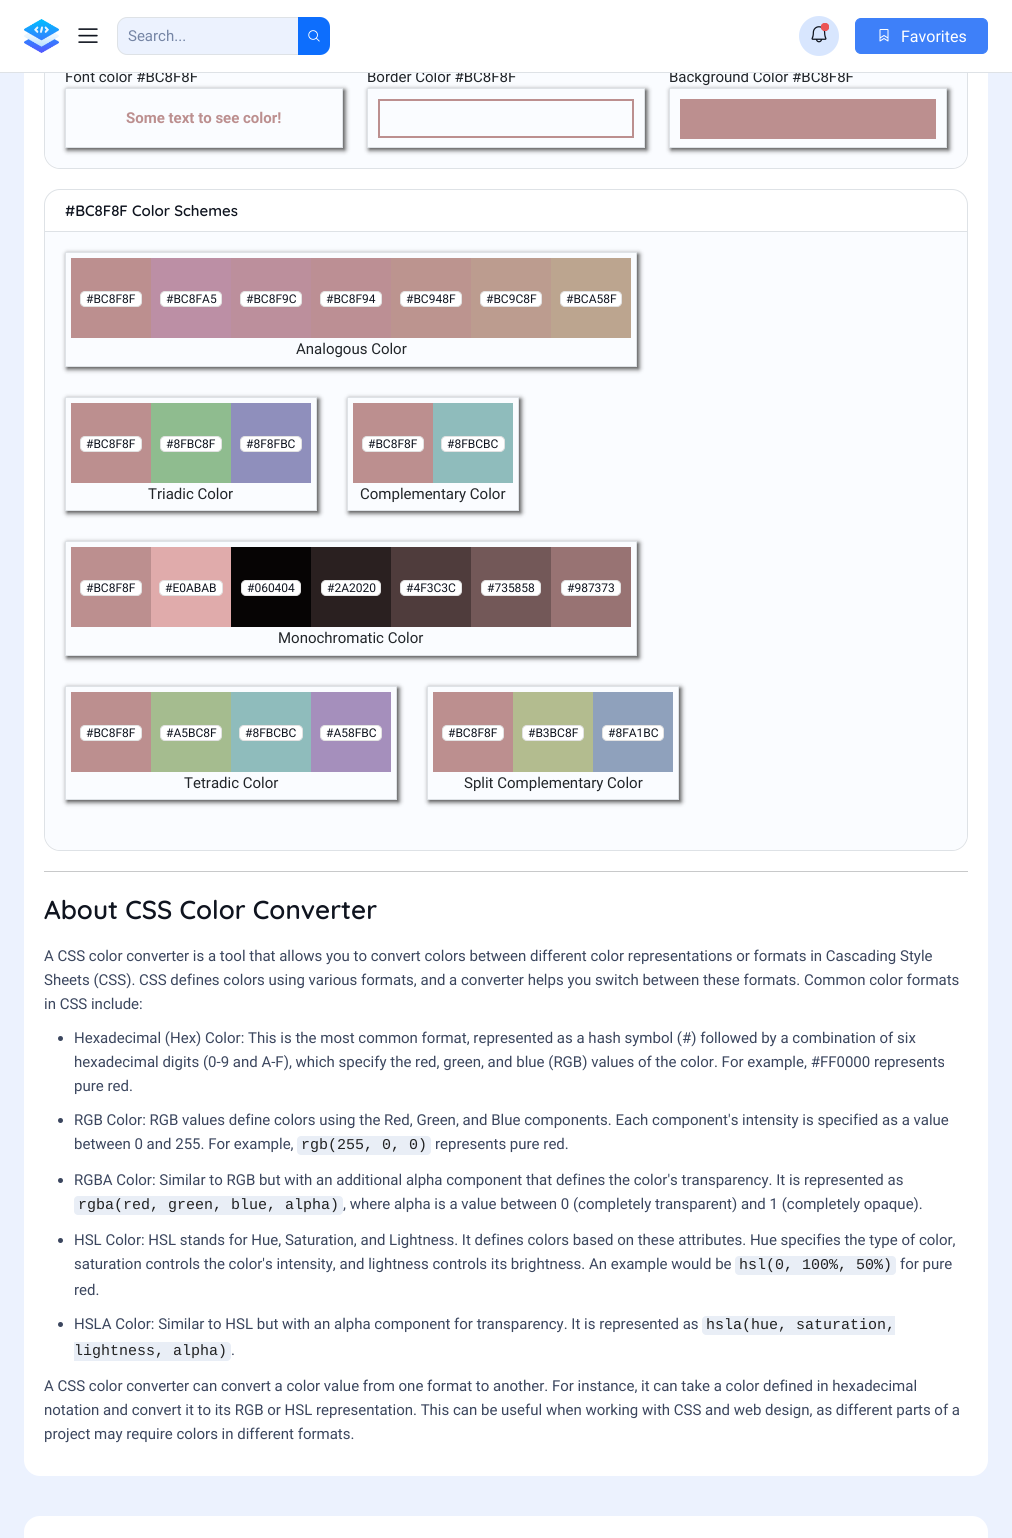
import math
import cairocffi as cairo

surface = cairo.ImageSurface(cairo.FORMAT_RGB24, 1012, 1538)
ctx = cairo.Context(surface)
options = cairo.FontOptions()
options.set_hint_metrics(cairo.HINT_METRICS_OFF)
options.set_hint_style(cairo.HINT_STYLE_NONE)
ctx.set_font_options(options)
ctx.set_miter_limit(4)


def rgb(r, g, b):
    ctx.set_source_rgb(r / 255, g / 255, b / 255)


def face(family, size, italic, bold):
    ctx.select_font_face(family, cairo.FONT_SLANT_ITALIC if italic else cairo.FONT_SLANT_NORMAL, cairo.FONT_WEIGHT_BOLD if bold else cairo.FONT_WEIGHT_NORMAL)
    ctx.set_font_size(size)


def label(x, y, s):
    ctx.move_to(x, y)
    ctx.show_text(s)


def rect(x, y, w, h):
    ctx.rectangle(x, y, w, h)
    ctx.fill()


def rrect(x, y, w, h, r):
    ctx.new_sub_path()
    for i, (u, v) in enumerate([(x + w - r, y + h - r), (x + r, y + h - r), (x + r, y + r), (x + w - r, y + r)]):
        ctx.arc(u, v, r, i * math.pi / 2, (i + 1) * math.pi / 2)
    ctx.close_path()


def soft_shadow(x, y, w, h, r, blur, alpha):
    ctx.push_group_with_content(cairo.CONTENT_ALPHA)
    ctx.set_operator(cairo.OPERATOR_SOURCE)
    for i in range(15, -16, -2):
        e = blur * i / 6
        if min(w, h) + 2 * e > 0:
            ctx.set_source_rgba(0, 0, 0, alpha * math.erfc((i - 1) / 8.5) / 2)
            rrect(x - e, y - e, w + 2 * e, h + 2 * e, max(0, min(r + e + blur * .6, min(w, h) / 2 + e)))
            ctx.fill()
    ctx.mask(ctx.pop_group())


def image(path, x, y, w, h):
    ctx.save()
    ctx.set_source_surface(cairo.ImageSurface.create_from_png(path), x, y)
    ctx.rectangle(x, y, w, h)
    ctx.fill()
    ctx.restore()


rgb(236, 242, 254)
ctx.paint()
rgb(255, 255, 255)
rrect(24, -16, 964, 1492, 16)
ctx.fill()
rrect(44.5, 3.5, 923, 165, 15.5)
rgb(222, 226, 230)
ctx.set_line_width(1)
ctx.stroke()
rgb(250, 252, 255)
ctx.new_path()
ctx.move_to(45, 46)
ctx.line_to(967, 46)
ctx.line_to(967, 152)
ctx.curve_to(967, 161, 960, 168, 951, 168)
ctx.line_to(61, 168)
ctx.curve_to(52, 168, 45, 161, 45, 152)
ctx.close_path()
ctx.fill()
ctx.save()
ctx.set_fill_rule(cairo.FILL_RULE_EVEN_ODD)
ctx.new_path()
ctx.move_to(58, 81)
ctx.line_to(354, 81)
ctx.line_to(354, 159)
ctx.line_to(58, 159)
ctx.close_path()
ctx.move_to(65, 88)
ctx.line_to(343, 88)
ctx.line_to(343, 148)
ctx.line_to(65, 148)
ctx.close_path()
ctx.clip()
rgb(68, 68, 68)
soft_shadow(67, 90, 278, 60, 0, 2.5, 1)
ctx.restore()
face('Roboto', 15, 0, 0)
rgb(33, 37, 41)
label(65, 82, 'Font color #BC8F8F')
ctx.save()
ctx.set_fill_rule(cairo.FILL_RULE_EVEN_ODD)
ctx.new_path()
ctx.move_to(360, 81)
ctx.line_to(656, 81)
ctx.line_to(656, 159)
ctx.line_to(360, 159)
ctx.close_path()
ctx.move_to(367, 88)
ctx.line_to(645, 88)
ctx.line_to(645, 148)
ctx.line_to(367, 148)
ctx.close_path()
ctx.clip()
rgb(68, 68, 68)
soft_shadow(369, 90, 278, 60, 0, 2.5, 1)
ctx.restore()
label(367, 82, 'Border Color #BC8F8F')
ctx.save()
ctx.set_fill_rule(cairo.FILL_RULE_EVEN_ODD)
ctx.new_path()
ctx.move_to(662, 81)
ctx.line_to(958, 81)
ctx.line_to(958, 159)
ctx.line_to(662, 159)
ctx.close_path()
ctx.move_to(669, 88)
ctx.line_to(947, 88)
ctx.line_to(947, 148)
ctx.line_to(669, 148)
ctx.close_path()
ctx.clip()
rgb(68, 68, 68)
soft_shadow(671, 90, 278, 60, 0, 2.5, 1)
ctx.restore()
label(669, 82, 'Background Color #BC8F8F')
rgb(255, 255, 255)
rect(0, 0, 1012, 72)
rgb(222, 226, 230)
rect(0, 72, 1012, 1)
image('image0.png', 24, 19, 35, 34)
image('image1.png', 78, 28, 20, 15)
rgb(236, 242, 254)
ctx.new_path()
ctx.move_to(127, 17.5)
ctx.line_to(298.5, 17.5)
ctx.line_to(298.5, 54.5)
ctx.line_to(127, 54.5)
ctx.curve_to(122, 54.5, 117.5, 50, 117.5, 45)
ctx.line_to(117.5, 27)
ctx.curve_to(117.5, 22, 122, 17.5, 127, 17.5)
ctx.close_path()
ctx.fill_preserve()
rgb(222, 226, 230)
ctx.stroke()
rgb(117, 133, 165)
label(128, 41, 'Search...')
rgb(13, 110, 253)
ctx.new_path()
ctx.move_to(298, 17)
ctx.line_to(320, 17)
ctx.curve_to(325.5, 17, 330, 21.5, 330, 27)
ctx.line_to(330, 45)
ctx.curve_to(330, 50.5, 325.5, 55, 320, 55)
ctx.line_to(298, 55)
ctx.close_path()
ctx.fill()
image('image2.png', 308, 30, 12, 12)
rgb(216, 230, 254)
ctx.arc(819, 36, 20, 0, 2 * math.pi)
ctx.fill()
image('image3.png', 811, 26, 16, 17)
rgb(234, 84, 85)
ctx.arc(825, 27, 4, 0, 2 * math.pi)
ctx.fill()
ctx.set_source_rgba(0.918, 0.329, 0.333, 0.8)
ctx.arc(825, 27, 4, 0, 2 * math.pi)
ctx.fill()
ctx.arc(825, 27, 4, 0, 2 * math.pi)
ctx.fill()
rgb(62, 128, 249)
rrect(855.5, 18.5, 132, 35, 5.5)
ctx.fill_preserve()
ctx.stroke()
image('image4.png', 879, 29, 10, 13)
face('Roboto', 16, 0, 0)
rgb(255, 255, 255)
label(901, 42, 'Favorites')
ctx.rectangle(65.5, 88.5, 277, 59)
rgb(222, 226, 230)
ctx.stroke()
face('Roboto', 15, 0, 1)
rgb(188, 143, 143)
label(126, 123, 'Some text to see color!')
ctx.rectangle(367.5, 88.5, 277, 59)
rgb(222, 226, 230)
ctx.stroke()
ctx.rectangle(379, 100, 254, 37)
rgb(188, 143, 143)
ctx.set_line_width(2)
ctx.stroke()
ctx.rectangle(669.5, 88.5, 277, 59)
rgb(222, 226, 230)
ctx.set_line_width(1)
ctx.stroke()
rgb(188, 143, 143)
rect(680, 99, 256, 40)
rrect(44.5, 189.5, 923, 661, 15.5)
rgb(222, 226, 230)
ctx.stroke()
rect(45, 231, 922, 1)
face('Quicksand SemiBold', 15, 0, 0)
rgb(15, 20, 31)
label(65, 216, '#BC8F8F Color Schemes')
rgb(250, 252, 255)
ctx.new_path()
ctx.move_to(45, 232)
ctx.line_to(967, 232)
ctx.line_to(967, 834)
ctx.curve_to(967, 843, 960, 850, 951, 850)
ctx.line_to(61, 850)
ctx.curve_to(52, 850, 45, 843, 45, 834)
ctx.close_path()
ctx.fill()
ctx.save()
ctx.set_fill_rule(cairo.FILL_RULE_EVEN_ODD)
ctx.new_path()
ctx.move_to(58, 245)
ctx.line_to(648, 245)
ctx.line_to(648, 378)
ctx.line_to(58, 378)
ctx.close_path()
ctx.move_to(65, 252)
ctx.line_to(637, 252)
ctx.line_to(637, 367)
ctx.line_to(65, 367)
ctx.close_path()
ctx.clip()
rgb(68, 68, 68)
soft_shadow(67, 254, 572, 115, 0, 2.5, 1)
ctx.restore()
ctx.rectangle(65.5, 252.5, 571, 114)
rgb(222, 226, 230)
ctx.stroke()
rgb(188, 143, 143)
rect(71, 258, 80, 80)
rgb(255, 255, 255)
rrect(80.5, 291.5, 61, 15, 4.5)
ctx.fill_preserve()
rgb(226, 226, 226)
ctx.stroke()
face('Roboto', 12, 0, 0)
rgb(15, 20, 31)
label(86, 303, '#BC8F8F')
rgb(188, 143, 165)
rect(151, 258, 80, 80)
rgb(255, 255, 255)
rrect(160.5, 291.5, 61, 15, 4.5)
ctx.fill_preserve()
rgb(226, 226, 226)
ctx.stroke()
rgb(15, 20, 31)
label(166, 303, '#BC8FA5')
rgb(188, 143, 156)
rect(231, 258, 80, 80)
rgb(255, 255, 255)
rrect(240.5, 291.5, 61, 15, 4.5)
ctx.fill_preserve()
rgb(226, 226, 226)
ctx.stroke()
rgb(15, 20, 31)
label(246, 303, '#BC8F9C')
rgb(188, 143, 148)
rect(311, 258, 80, 80)
rgb(255, 255, 255)
rrect(320.5, 291.5, 61, 15, 4.5)
ctx.fill_preserve()
rgb(226, 226, 226)
ctx.stroke()
rgb(15, 20, 31)
label(326, 303, '#BC8F94')
rgb(188, 148, 143)
rect(391, 258, 80, 80)
rgb(255, 255, 255)
rrect(400.5, 291.5, 61, 15, 4.5)
ctx.fill_preserve()
rgb(226, 226, 226)
ctx.stroke()
rgb(15, 20, 31)
label(406, 303, '#BC948F')
rgb(188, 156, 143)
rect(471, 258, 80, 80)
rgb(255, 255, 255)
rrect(480.5, 291.5, 61, 15, 4.5)
ctx.fill_preserve()
rgb(226, 226, 226)
ctx.stroke()
rgb(15, 20, 31)
label(486, 303, '#BC9C8F')
rgb(188, 165, 143)
rect(551, 258, 80, 80)
rgb(255, 255, 255)
rrect(560.5, 291.5, 61, 15, 4.5)
ctx.fill_preserve()
rgb(226, 226, 226)
ctx.stroke()
rgb(15, 20, 31)
label(566, 303, '#BCA58F')
face('Roboto', 15, 0, 0)
rgb(33, 37, 41)
label(296, 354, 'Analogous Color')
ctx.save()
ctx.set_fill_rule(cairo.FILL_RULE_EVEN_ODD)
ctx.new_path()
ctx.move_to(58, 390)
ctx.line_to(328, 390)
ctx.line_to(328, 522)
ctx.line_to(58, 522)
ctx.close_path()
ctx.move_to(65, 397)
ctx.line_to(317, 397)
ctx.line_to(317, 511)
ctx.line_to(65, 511)
ctx.close_path()
ctx.clip()
rgb(68, 68, 68)
soft_shadow(67, 399, 252, 114, 0, 2.5, 1)
ctx.restore()
ctx.rectangle(65.5, 397.5, 251, 113)
rgb(222, 226, 230)
ctx.stroke()
rgb(188, 143, 143)
rect(71, 403, 80, 80)
rgb(255, 255, 255)
rrect(80.5, 436.5, 61, 15, 4.5)
ctx.fill_preserve()
rgb(226, 226, 226)
ctx.stroke()
face('Roboto', 12, 0, 0)
rgb(15, 20, 31)
label(86, 448, '#BC8F8F')
rgb(143, 188, 143)
rect(151, 403, 80, 80)
rgb(255, 255, 255)
rrect(160.5, 436.5, 61, 15, 4.5)
ctx.fill_preserve()
rgb(226, 226, 226)
ctx.stroke()
rgb(15, 20, 31)
label(166, 448, '#8FBC8F')
rgb(143, 143, 188)
rect(231, 403, 80, 80)
rgb(255, 255, 255)
rrect(240.5, 436.5, 61, 15, 4.5)
ctx.fill_preserve()
rgb(226, 226, 226)
ctx.stroke()
rgb(15, 20, 31)
label(246, 448, '#8F8FBC')
face('Roboto', 15, 0, 0)
rgb(33, 37, 41)
label(148, 499, 'Triadic Color')
ctx.save()
ctx.set_fill_rule(cairo.FILL_RULE_EVEN_ODD)
ctx.new_path()
ctx.move_to(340, 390)
ctx.line_to(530, 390)
ctx.line_to(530, 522)
ctx.line_to(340, 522)
ctx.close_path()
ctx.move_to(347, 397)
ctx.line_to(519, 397)
ctx.line_to(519, 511)
ctx.line_to(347, 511)
ctx.close_path()
ctx.clip()
rgb(68, 68, 68)
soft_shadow(349, 399, 172, 114, 0, 2.5, 1)
ctx.restore()
ctx.rectangle(347.5, 397.5, 171, 113)
rgb(222, 226, 230)
ctx.stroke()
rgb(188, 143, 143)
rect(353, 403, 80, 80)
rgb(255, 255, 255)
rrect(362.5, 436.5, 61, 15, 4.5)
ctx.fill_preserve()
rgb(226, 226, 226)
ctx.stroke()
face('Roboto', 12, 0, 0)
rgb(15, 20, 31)
label(368, 448, '#BC8F8F')
rgb(143, 188, 188)
rect(433, 403, 80, 80)
rgb(255, 255, 255)
rrect(441.5, 436.5, 63, 15, 4.5)
ctx.fill_preserve()
rgb(226, 226, 226)
ctx.stroke()
rgb(15, 20, 31)
label(447, 448, '#8FBCBC')
face('Roboto', 15, 0, 0)
rgb(33, 37, 41)
label(360, 499, 'Complementary Color')
ctx.save()
ctx.set_fill_rule(cairo.FILL_RULE_EVEN_ODD)
ctx.new_path()
ctx.move_to(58, 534)
ctx.line_to(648, 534)
ctx.line_to(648, 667)
ctx.line_to(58, 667)
ctx.close_path()
ctx.move_to(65, 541)
ctx.line_to(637, 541)
ctx.line_to(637, 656)
ctx.line_to(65, 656)
ctx.close_path()
ctx.clip()
rgb(68, 68, 68)
soft_shadow(67, 543, 572, 115, 0, 2.5, 1)
ctx.restore()
ctx.rectangle(65.5, 541.5, 571, 114)
rgb(222, 226, 230)
ctx.stroke()
rgb(188, 143, 143)
rect(71, 547, 80, 80)
rgb(255, 255, 255)
rrect(80.5, 580.5, 61, 15, 4.5)
ctx.fill_preserve()
rgb(226, 226, 226)
ctx.stroke()
face('Roboto', 12, 0, 0)
rgb(15, 20, 31)
label(86, 592, '#BC8F8F')
rgb(224, 171, 171)
rect(151, 547, 80, 80)
rgb(255, 255, 255)
rrect(159.5, 580.5, 63, 15, 4.5)
ctx.fill_preserve()
rgb(226, 226, 226)
ctx.stroke()
rgb(15, 20, 31)
label(165, 592, '#E0ABAB')
rgb(6, 4, 4)
rect(231, 547, 80, 80)
rgb(255, 255, 255)
rrect(241.5, 580.5, 59, 15, 4.5)
ctx.fill_preserve()
rgb(226, 226, 226)
ctx.stroke()
rgb(15, 20, 31)
label(247, 592, '#060404')
rgb(42, 32, 32)
rect(311, 547, 80, 80)
rgb(255, 255, 255)
rrect(321.5, 580.5, 59, 15, 4.5)
ctx.fill_preserve()
rgb(226, 226, 226)
ctx.stroke()
rgb(15, 20, 31)
label(327, 592, '#2A2020')
rgb(79, 60, 60)
rect(391, 547, 80, 80)
rgb(255, 255, 255)
rrect(400.5, 580.5, 61, 15, 4.5)
ctx.fill_preserve()
rgb(226, 226, 226)
ctx.stroke()
rgb(15, 20, 31)
label(406, 592, '#4F3C3C')
rgb(115, 88, 88)
rect(471, 547, 80, 80)
rgb(255, 255, 255)
rrect(481.5, 580.5, 59, 15, 4.5)
ctx.fill_preserve()
rgb(226, 226, 226)
ctx.stroke()
rgb(15, 20, 31)
label(487, 592, '#735858')
rgb(152, 115, 115)
rect(551, 547, 80, 80)
rgb(255, 255, 255)
rrect(561.5, 580.5, 59, 15, 4.5)
ctx.fill_preserve()
rgb(226, 226, 226)
ctx.stroke()
rgb(15, 20, 31)
label(567, 592, '#987373')
face('Roboto', 15, 0, 0)
rgb(33, 37, 41)
label(278, 643, 'Monochromatic Color')
ctx.save()
ctx.set_fill_rule(cairo.FILL_RULE_EVEN_ODD)
ctx.new_path()
ctx.move_to(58, 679)
ctx.line_to(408, 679)
ctx.line_to(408, 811)
ctx.line_to(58, 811)
ctx.close_path()
ctx.move_to(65, 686)
ctx.line_to(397, 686)
ctx.line_to(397, 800)
ctx.line_to(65, 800)
ctx.close_path()
ctx.clip()
rgb(68, 68, 68)
soft_shadow(67, 688, 332, 114, 0, 2.5, 1)
ctx.restore()
ctx.rectangle(65.5, 686.5, 331, 113)
rgb(222, 226, 230)
ctx.stroke()
rgb(188, 143, 143)
rect(71, 692, 80, 80)
rgb(255, 255, 255)
rrect(80.5, 725.5, 61, 15, 4.5)
ctx.fill_preserve()
rgb(226, 226, 226)
ctx.stroke()
face('Roboto', 12, 0, 0)
rgb(15, 20, 31)
label(86, 737, '#BC8F8F')
rgb(165, 188, 143)
rect(151, 692, 80, 80)
rgb(255, 255, 255)
rrect(160.5, 725.5, 61, 15, 4.5)
ctx.fill_preserve()
rgb(226, 226, 226)
ctx.stroke()
rgb(15, 20, 31)
label(166, 737, '#A5BC8F')
rgb(143, 188, 188)
rect(231, 692, 80, 80)
rgb(255, 255, 255)
rrect(239.5, 725.5, 63, 15, 4.5)
ctx.fill_preserve()
rgb(226, 226, 226)
ctx.stroke()
rgb(15, 20, 31)
label(245, 737, '#8FBCBC')
rgb(165, 143, 188)
rect(311, 692, 80, 80)
rgb(255, 255, 255)
rrect(320.5, 725.5, 61, 15, 4.5)
ctx.fill_preserve()
rgb(226, 226, 226)
ctx.stroke()
rgb(15, 20, 31)
label(326, 737, '#A58FBC')
face('Roboto', 15, 0, 0)
rgb(33, 37, 41)
label(184, 788, 'Tetradic Color')
ctx.save()
ctx.set_fill_rule(cairo.FILL_RULE_EVEN_ODD)
ctx.new_path()
ctx.move_to(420, 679)
ctx.line_to(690, 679)
ctx.line_to(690, 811)
ctx.line_to(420, 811)
ctx.close_path()
ctx.move_to(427, 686)
ctx.line_to(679, 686)
ctx.line_to(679, 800)
ctx.line_to(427, 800)
ctx.close_path()
ctx.clip()
rgb(68, 68, 68)
soft_shadow(429, 688, 252, 114, 0, 2.5, 1)
ctx.restore()
ctx.rectangle(427.5, 686.5, 251, 113)
rgb(222, 226, 230)
ctx.stroke()
rgb(188, 143, 143)
rect(433, 692, 80, 80)
rgb(255, 255, 255)
rrect(442.5, 725.5, 61, 15, 4.5)
ctx.fill_preserve()
rgb(226, 226, 226)
ctx.stroke()
face('Roboto', 12, 0, 0)
rgb(15, 20, 31)
label(448, 737, '#BC8F8F')
rgb(179, 188, 143)
rect(513, 692, 80, 80)
rgb(255, 255, 255)
rrect(522.5, 725.5, 61, 15, 4.5)
ctx.fill_preserve()
rgb(226, 226, 226)
ctx.stroke()
rgb(15, 20, 31)
label(528, 737, '#B3BC8F')
rgb(143, 161, 188)
rect(593, 692, 80, 80)
rgb(255, 255, 255)
rrect(602.5, 725.5, 61, 15, 4.5)
ctx.fill_preserve()
rgb(226, 226, 226)
ctx.stroke()
rgb(15, 20, 31)
label(608, 737, '#8FA1BC')
face('Roboto', 15, 0, 0)
rgb(33, 37, 41)
label(464, 788, 'Split Complementary Color')
rgb(200, 201, 202)
rect(44, 871, 924, 1)
face('Quicksand SemiBold', 26, 0, 0)
rgb(15, 20, 31)
label(44, 919, 'About CSS Color Converter')
face('Roboto', 15, 0, 0)
rgb(59, 70, 94)
label(44, 961, 'A CSS color converter is a tool that allows you to convert colors between different color representations or formats in Cascading Style')
label(44, 985, 'Sheets (CSS). CSS defines colors using various formats, and a converter helps you switch between these formats. Common color formats')
label(44, 1009, 'in CSS include:')
ctx.new_path()
ctx.arc(60.5, 1038.5, 2.5, 0, 2 * math.pi)
ctx.fill()
label(74, 1043, 'Hexadecimal (Hex) Color: This is the most common format, represented as a hash symbol (#) followed by a combination of six')
label(74, 1067, 'hexadecimal digits (0-9 and A-F), which specify the red, green, and blue (RGB) values of the color. For example, #FF0000 represents')
label(74, 1091, 'pure red.')
ctx.new_path()
ctx.arc(60.5, 1120.5, 2.5, 0, 2 * math.pi)
ctx.fill()
label(74, 1125, 'RGB Color: RGB values define colors using the Red, Green, and Blue components. Each component\'s intensity is specified as a value')
label(74, 1149, 'between 0 and 255. For example,')
rgb(233, 238, 246)
rrect(297, 1136, 134, 19, 4)
ctx.fill()
face('Liberation Mono', 15, 0, 0)
rgb(34, 34, 34)
label(301, 1149, 'rgb(255, 0, 0)')
face('Roboto', 15, 0, 0)
rgb(59, 70, 94)
label(435, 1149, 'represents pure red.')
ctx.new_path()
ctx.arc(60.5, 1180.5, 2.5, 0, 2 * math.pi)
ctx.fill()
label(74, 1185, 'RGBA Color: Similar to RGB but with an additional alpha component that defines the color\'s transparency. It is represented as')
rgb(233, 238, 246)
rrect(74, 1196, 269, 19, 4)
ctx.fill()
face('Liberation Mono', 15, 0, 0)
rgb(34, 34, 34)
label(78, 1209, 'rgba(red, green, blue, alpha)')
face('Roboto', 15, 0, 0)
rgb(59, 70, 94)
label(343, 1209, ', where alpha is a value between 0 (completely transparent) and 1 (completely opaque).')
ctx.new_path()
ctx.arc(60.5, 1240.5, 2.5, 0, 2 * math.pi)
ctx.fill()
label(74, 1245, 'HSL Color: HSL stands for Hue, Saturation, and Lightness. It defines colors based on these attributes. Hue specifies the type of color,')
label(74, 1269, 'saturation controls the color\'s intensity, and lightness controls its brightness. An example would be')
rgb(233, 238, 246)
rrect(735, 1256, 161, 19, 4)
ctx.fill()
face('Liberation Mono', 15, 0, 0)
rgb(34, 34, 34)
label(739, 1269, 'hsl(0, 100%, 50%)')
face('Roboto', 15, 0, 0)
rgb(59, 70, 94)
label(900, 1269, 'for pure')
label(74, 1295, 'red.')
ctx.new_path()
ctx.arc(60.5, 1324.5, 2.5, 0, 2 * math.pi)
ctx.fill()
label(74, 1329, 'HSLA Color: Similar to HSL but with an alpha component for transparency. It is represented as')
rgb(233, 238, 246)
ctx.new_path()
ctx.move_to(706, 1316)
ctx.line_to(895, 1316)
ctx.line_to(895, 1335)
ctx.line_to(706, 1335)
ctx.curve_to(704, 1335, 702, 1333, 702, 1331)
ctx.line_to(702, 1320)
ctx.curve_to(702, 1318, 704, 1316, 706, 1316)
ctx.close_path()
ctx.fill()
face('Liberation Mono', 15, 0, 0)
rgb(34, 34, 34)
label(706, 1329, 'hsla(hue, saturation,')
rgb(233, 238, 246)
ctx.new_path()
ctx.move_to(74, 1342)
ctx.line_to(227, 1342)
ctx.curve_to(229, 1342, 231, 1344, 231, 1346)
ctx.line_to(231, 1357)
ctx.curve_to(231, 1359, 229, 1361, 227, 1361)
ctx.line_to(74, 1361)
ctx.close_path()
ctx.fill()
rgb(34, 34, 34)
label(74, 1355, 'lightness, alpha)')
face('Roboto', 15, 0, 0)
rgb(59, 70, 94)
label(231, 1355, '.')
label(44, 1391, 'A CSS color converter can convert a color value from one format to another. For instance, it can take a color defined in hexadecimal')
label(44, 1415, 'notation and convert it to its RGB or HSL representation. This can be useful when working with CSS and web design, as different parts of a')
label(44, 1439, 'project may require colors in different formats.')
rgb(255, 255, 255)
rrect(24, 1516, 964, 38, 16)
ctx.fill()
surface.write_to_png('render.png')
